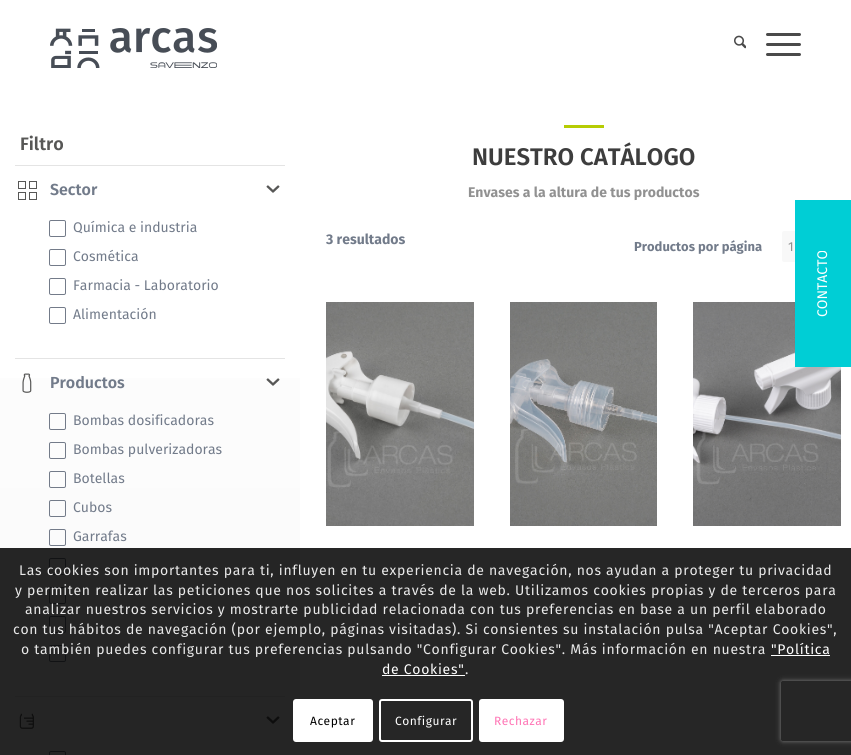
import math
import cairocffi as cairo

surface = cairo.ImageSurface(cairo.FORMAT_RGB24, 851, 755)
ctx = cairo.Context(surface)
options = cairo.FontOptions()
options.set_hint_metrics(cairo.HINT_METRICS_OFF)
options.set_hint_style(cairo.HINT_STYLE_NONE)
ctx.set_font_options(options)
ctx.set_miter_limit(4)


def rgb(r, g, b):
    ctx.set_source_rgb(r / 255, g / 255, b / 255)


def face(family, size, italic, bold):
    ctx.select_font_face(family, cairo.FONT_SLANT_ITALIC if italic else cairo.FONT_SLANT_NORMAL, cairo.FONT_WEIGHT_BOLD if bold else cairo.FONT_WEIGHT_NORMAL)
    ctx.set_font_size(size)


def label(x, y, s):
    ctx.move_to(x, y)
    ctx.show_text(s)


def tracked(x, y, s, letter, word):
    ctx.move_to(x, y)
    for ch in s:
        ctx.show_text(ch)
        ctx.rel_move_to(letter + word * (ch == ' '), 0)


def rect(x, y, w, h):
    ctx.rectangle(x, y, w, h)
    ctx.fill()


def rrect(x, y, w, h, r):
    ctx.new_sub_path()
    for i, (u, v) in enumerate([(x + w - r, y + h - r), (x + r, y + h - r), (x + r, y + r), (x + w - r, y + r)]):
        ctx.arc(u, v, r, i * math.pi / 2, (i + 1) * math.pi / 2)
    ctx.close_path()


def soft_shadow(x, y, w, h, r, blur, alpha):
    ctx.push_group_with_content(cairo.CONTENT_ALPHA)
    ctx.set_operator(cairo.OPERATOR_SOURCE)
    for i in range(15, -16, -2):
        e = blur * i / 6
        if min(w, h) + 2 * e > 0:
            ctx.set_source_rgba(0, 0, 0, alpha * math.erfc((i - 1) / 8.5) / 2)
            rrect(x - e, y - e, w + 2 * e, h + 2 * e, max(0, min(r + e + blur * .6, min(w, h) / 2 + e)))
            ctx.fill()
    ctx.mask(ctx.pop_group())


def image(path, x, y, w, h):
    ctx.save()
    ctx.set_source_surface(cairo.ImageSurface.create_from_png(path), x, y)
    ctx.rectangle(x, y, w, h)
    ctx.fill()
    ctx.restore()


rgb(255, 255, 255)
ctx.paint()
image('image0.png', 50, 28, 167, 40)
image('image1.png', 734, 35, 12, 14)
rgb(74, 74, 74)
rrect(766, 43, 35, 3, 1.5)
ctx.fill()
rrect(766, 33, 35, 3, 1.5)
ctx.fill()
rrect(766, 53, 35, 3, 1.5)
ctx.fill()
gradient = cairo.LinearGradient(150, 110, 150, 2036)
gradient.add_color_stop_rgba(0, 1, 1, 1, 1)
gradient.add_color_stop_rgba(0.5, 0.965, 0.965, 0.965, 1)
gradient.add_color_stop_rgba(1, 0.949, 0.949, 0.949, 1)
ctx.set_source(gradient)
rect(0, 378, 300, 377)
rgb(228, 228, 228)
rect(15, 165, 270, 1)
face('Fira Sans SemiBold', 18, 0, 0)
rgb(87, 87, 86)
label(20, 150, 'Filtro')
image('image2.png', 266, 185, 14, 8)
rgb(228, 228, 228)
rect(15, 358, 270, 1)
ctx.rectangle(18.5, 181.5, 7, 7)
rgb(87, 87, 86)
ctx.set_line_width(1)
ctx.stroke()
ctx.rectangle(29.5, 181.5, 7, 7)
ctx.stroke()
ctx.rectangle(18.5, 192.5, 7, 7)
ctx.stroke()
ctx.rectangle(29.5, 192.5, 7, 7)
ctx.stroke()
face('Fira Sans SemiBold', 16, 0, 0)
rgb(114, 123, 138)
label(50, 195, 'Sector')
rrect(49.5, 220.5, 16, 16, 1.5)
rgb(115, 123, 137)
ctx.stroke()
face('Fira Sans', 14, 0, 0)
rgb(114, 123, 138)
label(73, 232, 'Química e industria')
rrect(49.5, 249.5, 16, 16, 1.5)
rgb(115, 123, 137)
ctx.stroke()
rgb(114, 123, 138)
label(73, 261, 'Cosmética')
rrect(49.5, 278.5, 16, 16, 1.5)
rgb(115, 123, 137)
ctx.stroke()
rgb(114, 123, 138)
label(73, 290, 'Farmacia - Laboratorio')
rrect(49.5, 307.5, 16, 16, 1.5)
rgb(115, 123, 137)
ctx.stroke()
rgb(114, 123, 138)
label(73, 319, 'Alimentación')
image('image3.png', 266, 378, 14, 8)
rgb(228, 228, 228)
rect(15, 696, 270, 1)
image('image4.png', 22, 373, 10, 20)
face('Fira Sans SemiBold', 16, 0, 0)
rgb(114, 123, 138)
label(50, 388, 'Productos')
rrect(49.5, 413.5, 16, 16, 1.5)
rgb(115, 123, 137)
ctx.stroke()
face('Fira Sans', 14, 0, 0)
rgb(114, 123, 138)
label(73, 425, 'Bombas dosificadoras')
rrect(49.5, 442.5, 16, 16, 1.5)
rgb(115, 123, 137)
ctx.stroke()
rgb(114, 123, 138)
label(73, 454, 'Bombas pulverizadoras')
rrect(49.5, 471.5, 16, 16, 1.5)
rgb(115, 123, 137)
ctx.stroke()
rgb(114, 123, 138)
label(73, 483, 'Botellas')
rrect(49.5, 500.5, 16, 16, 1.5)
rgb(115, 123, 137)
ctx.stroke()
rgb(114, 123, 138)
label(73, 512, 'Cubos')
rrect(49.5, 529.5, 16, 16, 1.5)
rgb(115, 123, 137)
ctx.stroke()
rgb(114, 123, 138)
label(73, 541, 'Garrafas')
rrect(49.5, 558.5, 16, 16, 1.5)
rgb(115, 123, 137)
ctx.stroke()
rrect(49.5, 587.5, 16, 16, 1.5)
ctx.stroke()
rrect(49.5, 616.5, 16, 16, 1.5)
ctx.stroke()
rrect(49.5, 645.5, 16, 16, 1.5)
ctx.stroke()
image('image5.png', 266, 716, 14, 8)
image('image6.png', 19, 713, 15, 16)
rrect(49.5, 751.5, 16, 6, 1.5)
ctx.stroke()
rgb(182, 204, 3)
rect(564, 125, 40, 3)
face('Fira Sans SemiBold', 24, 0, 0)
rgb(61, 61, 61)
label(472, 165, 'NUESTRO CATÁLOGO')
face('Fira Sans', 14, 0, 1)
rgb(145, 145, 145)
label(468, 197, 'Envases a la altura de tus productos')
rgb(114, 123, 138)
label(326, 244, '3 resultados')
face('Fira Sans', 13, 0, 1)
label(634, 251, 'Productos por página')
rgb(248, 248, 248)
rrect(782, 231, 59, 31, 2)
ctx.fill()
face('Fira Sans', 13, 0, 0)
rgb(145, 145, 145)
label(788, 251, '1')
image('image7.png', 326, 302, 148, 224)
image('image8.png', 510, 302, 147, 224)
image('image9.png', 693, 302, 148, 224)
rgb(0, 206, 213)
rect(795, 200, 56, 167)
face('Fira Sans', 14, 0, 0)
rgb(255, 255, 255)
ctx.save()
ctx.translate(827, 317)
ctx.rotate(-90 * math.pi / 180)
label(0, 0, 'CONTACTO')
ctx.restore()
ctx.set_source_rgba(0, 0, 0, 0.85)
rect(0, 548, 851, 207)
rgb(233, 233, 233)
tracked(19, 575, 'Las cookies son importantes para ti, influyen en tu experiencia de navegación, nos ayudan a proteger tu privacidad', 0.7, 0)
tracked(15, 595, 'y permiten realizar las peticiones que nos solicites a través de la web. Utilizamos cookies propias y de terceros para', 0.7, 0)
tracked(25, 614, 'analizar nuestros servicios y mostrarte publicidad relacionada con tus preferencias en base a un perfil elaborado', 0.7, 0)
tracked(13, 634, 'con tus hábitos de navegación (por ejemplo, páginas visitadas). Si consientes su instalación pulsa "Aceptar Cookies",', 0.7, 0)
tracked(21, 654, 'o también puedes configurar tus preferencias pulsando "Configurar Cookies". Más información en nuestra', 0.7, 0)
rgb(255, 255, 255)
tracked(771, 654, '"Política', 0.7, 0)
rect(771, 655, 59, 1)
tracked(382, 674, 'de Cookies"', 0.7, 0)
rect(382, 675, 83, 1)
rgb(233, 233, 233)
tracked(465, 674, '.', 0.7, 0)
rgb(255, 255, 255)
rrect(293, 699, 80, 43, 3)
ctx.fill()
face('Fira Sans', 12, 0, 0)
rgb(0, 0, 0)
tracked(310, 725, 'Aceptar', 0.5, 0)
rrect(380, 700, 92, 41, 2)
rgb(255, 255, 255)
ctx.set_line_width(2)
ctx.stroke()
tracked(395, 725, 'Configurar', 0.5, 0)
rrect(480, 700, 83, 41, 2)
ctx.fill_preserve()
ctx.stroke()
rgb(255, 117, 181)
tracked(494, 725, 'Rechazar', 0.5, 0)
ctx.save()
ctx.set_fill_rule(cairo.FILL_RULE_EVEN_ODD)
ctx.new_path()
ctx.move_to(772, 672)
ctx.line_to(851, 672)
ctx.line_to(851, 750)
ctx.line_to(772, 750)
ctx.close_path()
ctx.move_to(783, 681)
ctx.line_to(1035, 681)
ctx.curve_to(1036, 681, 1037, 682, 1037, 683)
ctx.line_to(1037, 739)
ctx.curve_to(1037, 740, 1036, 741, 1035, 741)
ctx.line_to(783, 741)
ctx.curve_to(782, 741, 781, 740, 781, 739)
ctx.line_to(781, 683)
ctx.curve_to(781, 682, 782, 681, 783, 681)
ctx.close_path()
ctx.clip()
rgb(128, 128, 128)
soft_shadow(781, 681, 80, 60, 2, 2.5, 1)
ctx.restore()
surface.write_to_png('render.png')
